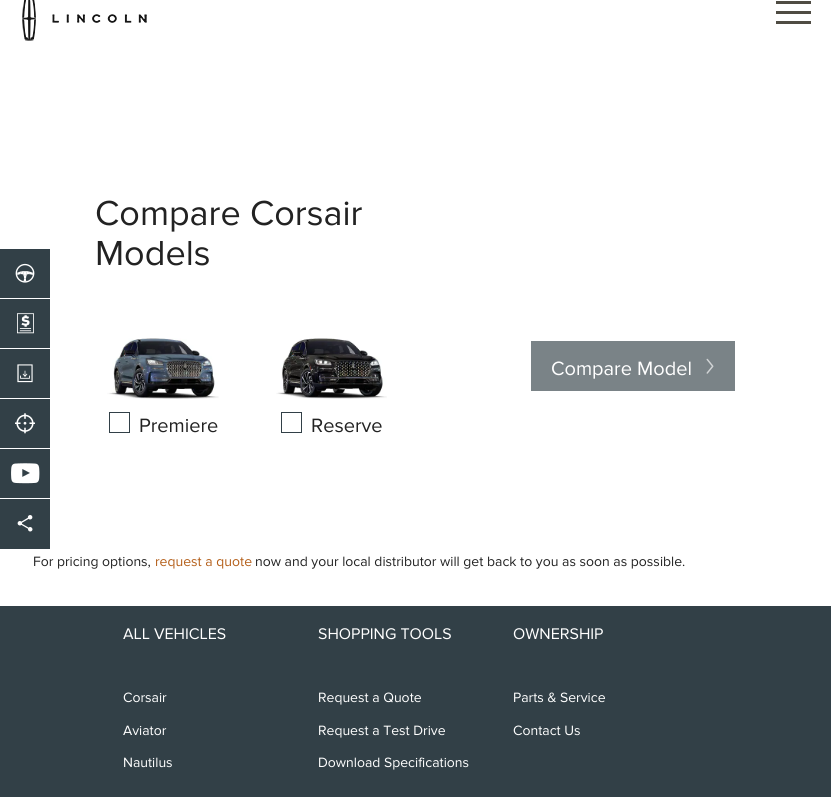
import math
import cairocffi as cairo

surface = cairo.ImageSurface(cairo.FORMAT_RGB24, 831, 797)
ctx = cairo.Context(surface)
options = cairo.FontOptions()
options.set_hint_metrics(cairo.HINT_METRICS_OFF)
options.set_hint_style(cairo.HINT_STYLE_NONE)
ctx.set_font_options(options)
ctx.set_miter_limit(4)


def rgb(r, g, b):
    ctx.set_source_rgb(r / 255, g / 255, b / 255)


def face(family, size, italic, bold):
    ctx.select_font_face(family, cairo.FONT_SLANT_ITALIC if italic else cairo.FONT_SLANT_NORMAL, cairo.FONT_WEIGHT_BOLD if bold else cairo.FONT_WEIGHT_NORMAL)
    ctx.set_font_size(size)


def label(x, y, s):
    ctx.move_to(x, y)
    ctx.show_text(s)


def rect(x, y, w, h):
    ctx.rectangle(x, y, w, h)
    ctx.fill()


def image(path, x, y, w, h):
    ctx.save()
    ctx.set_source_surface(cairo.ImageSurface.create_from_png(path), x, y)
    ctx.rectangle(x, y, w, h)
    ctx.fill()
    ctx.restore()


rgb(255, 255, 255)
ctx.paint()
image('image0.png', 22, 0, 125, 41)
rgb(79, 76, 67)
rect(776, 1, 35, 3)
rect(776, 11, 35, 3)
rect(776, 21, 35, 3)
rgb(50, 64, 71)
rect(0, 249, 50, 49)
image('image1.png', 15, 263, 20, 20)
rect(0, 299, 50, 49)
image('image2.png', 17, 313, 17, 21)
rect(0, 349, 50, 49)
image('image3.png', 17, 364, 16, 19)
rect(0, 399, 50, 49)
image('image4.png', 15, 413, 20, 21)
rect(0, 449, 50, 49)
image('image5.png', 11, 463, 29, 21)
rect(0, 499, 50, 50)
image('image6.png', 17, 515, 16, 17)
face('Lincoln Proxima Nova', 36, 0, 0)
rgb(34, 34, 34)
label(95, 225, 'Compare Corsair')
label(95, 265, 'Models')
rgb(122, 131, 135)
rect(531, 341, 204, 50)
face('Lincoln Proxima Nova', 20, 0, 0)
rgb(255, 255, 255)
label(551, 375, 'Compare Model')
image('image7.png', 706, 358, 8, 16)
image('image8.png', 107, 338, 112, 61)
ctx.rectangle(109.5, 412.5, 20, 20)
rgb(50, 64, 71)
ctx.set_line_width(1)
ctx.stroke()
rgb(34, 34, 34)
label(139, 432, 'Premiere')
image('image9.png', 276, 338, 111, 61)
ctx.rectangle(281.5, 412.5, 20, 20)
rgb(50, 64, 71)
ctx.stroke()
rgb(34, 34, 34)
label(311, 432, 'Reserve')
face('Lincoln Proxima Nova', 14, 0, 0)
label(33, 566, 'For pricing options,')
rgb(180, 95, 26)
label(155, 566, 'request a quote')
rgb(34, 34, 34)
label(255, 566, 'now and your local distributor will get back to you as soon as possible.')
rgb(50, 64, 71)
rect(0, 606, 831, 191)
face('Lincoln Proxima Nova', 16, 0, 0)
rgb(255, 255, 255)
label(123, 639, 'ALL VEHICLES')
face('Lincoln Proxima Nova', 14, 0, 0)
label(123, 702, 'Corsair')
label(123, 735, 'Aviator')
label(123, 767, 'Nautilus')
face('Lincoln Proxima Nova', 16, 0, 0)
label(318, 639, 'SHOPPING TOOLS')
face('Lincoln Proxima Nova', 14, 0, 0)
label(318, 702, 'Request a Quote')
label(318, 735, 'Request a Test Drive')
label(318, 767, 'Download Specifications')
face('Lincoln Proxima Nova', 16, 0, 0)
label(513, 639, 'OWNERSHIP')
face('Lincoln Proxima Nova', 14, 0, 0)
label(513, 702, 'Parts & Service')
label(513, 735, 'Contact Us')
surface.write_to_png('render.png')
